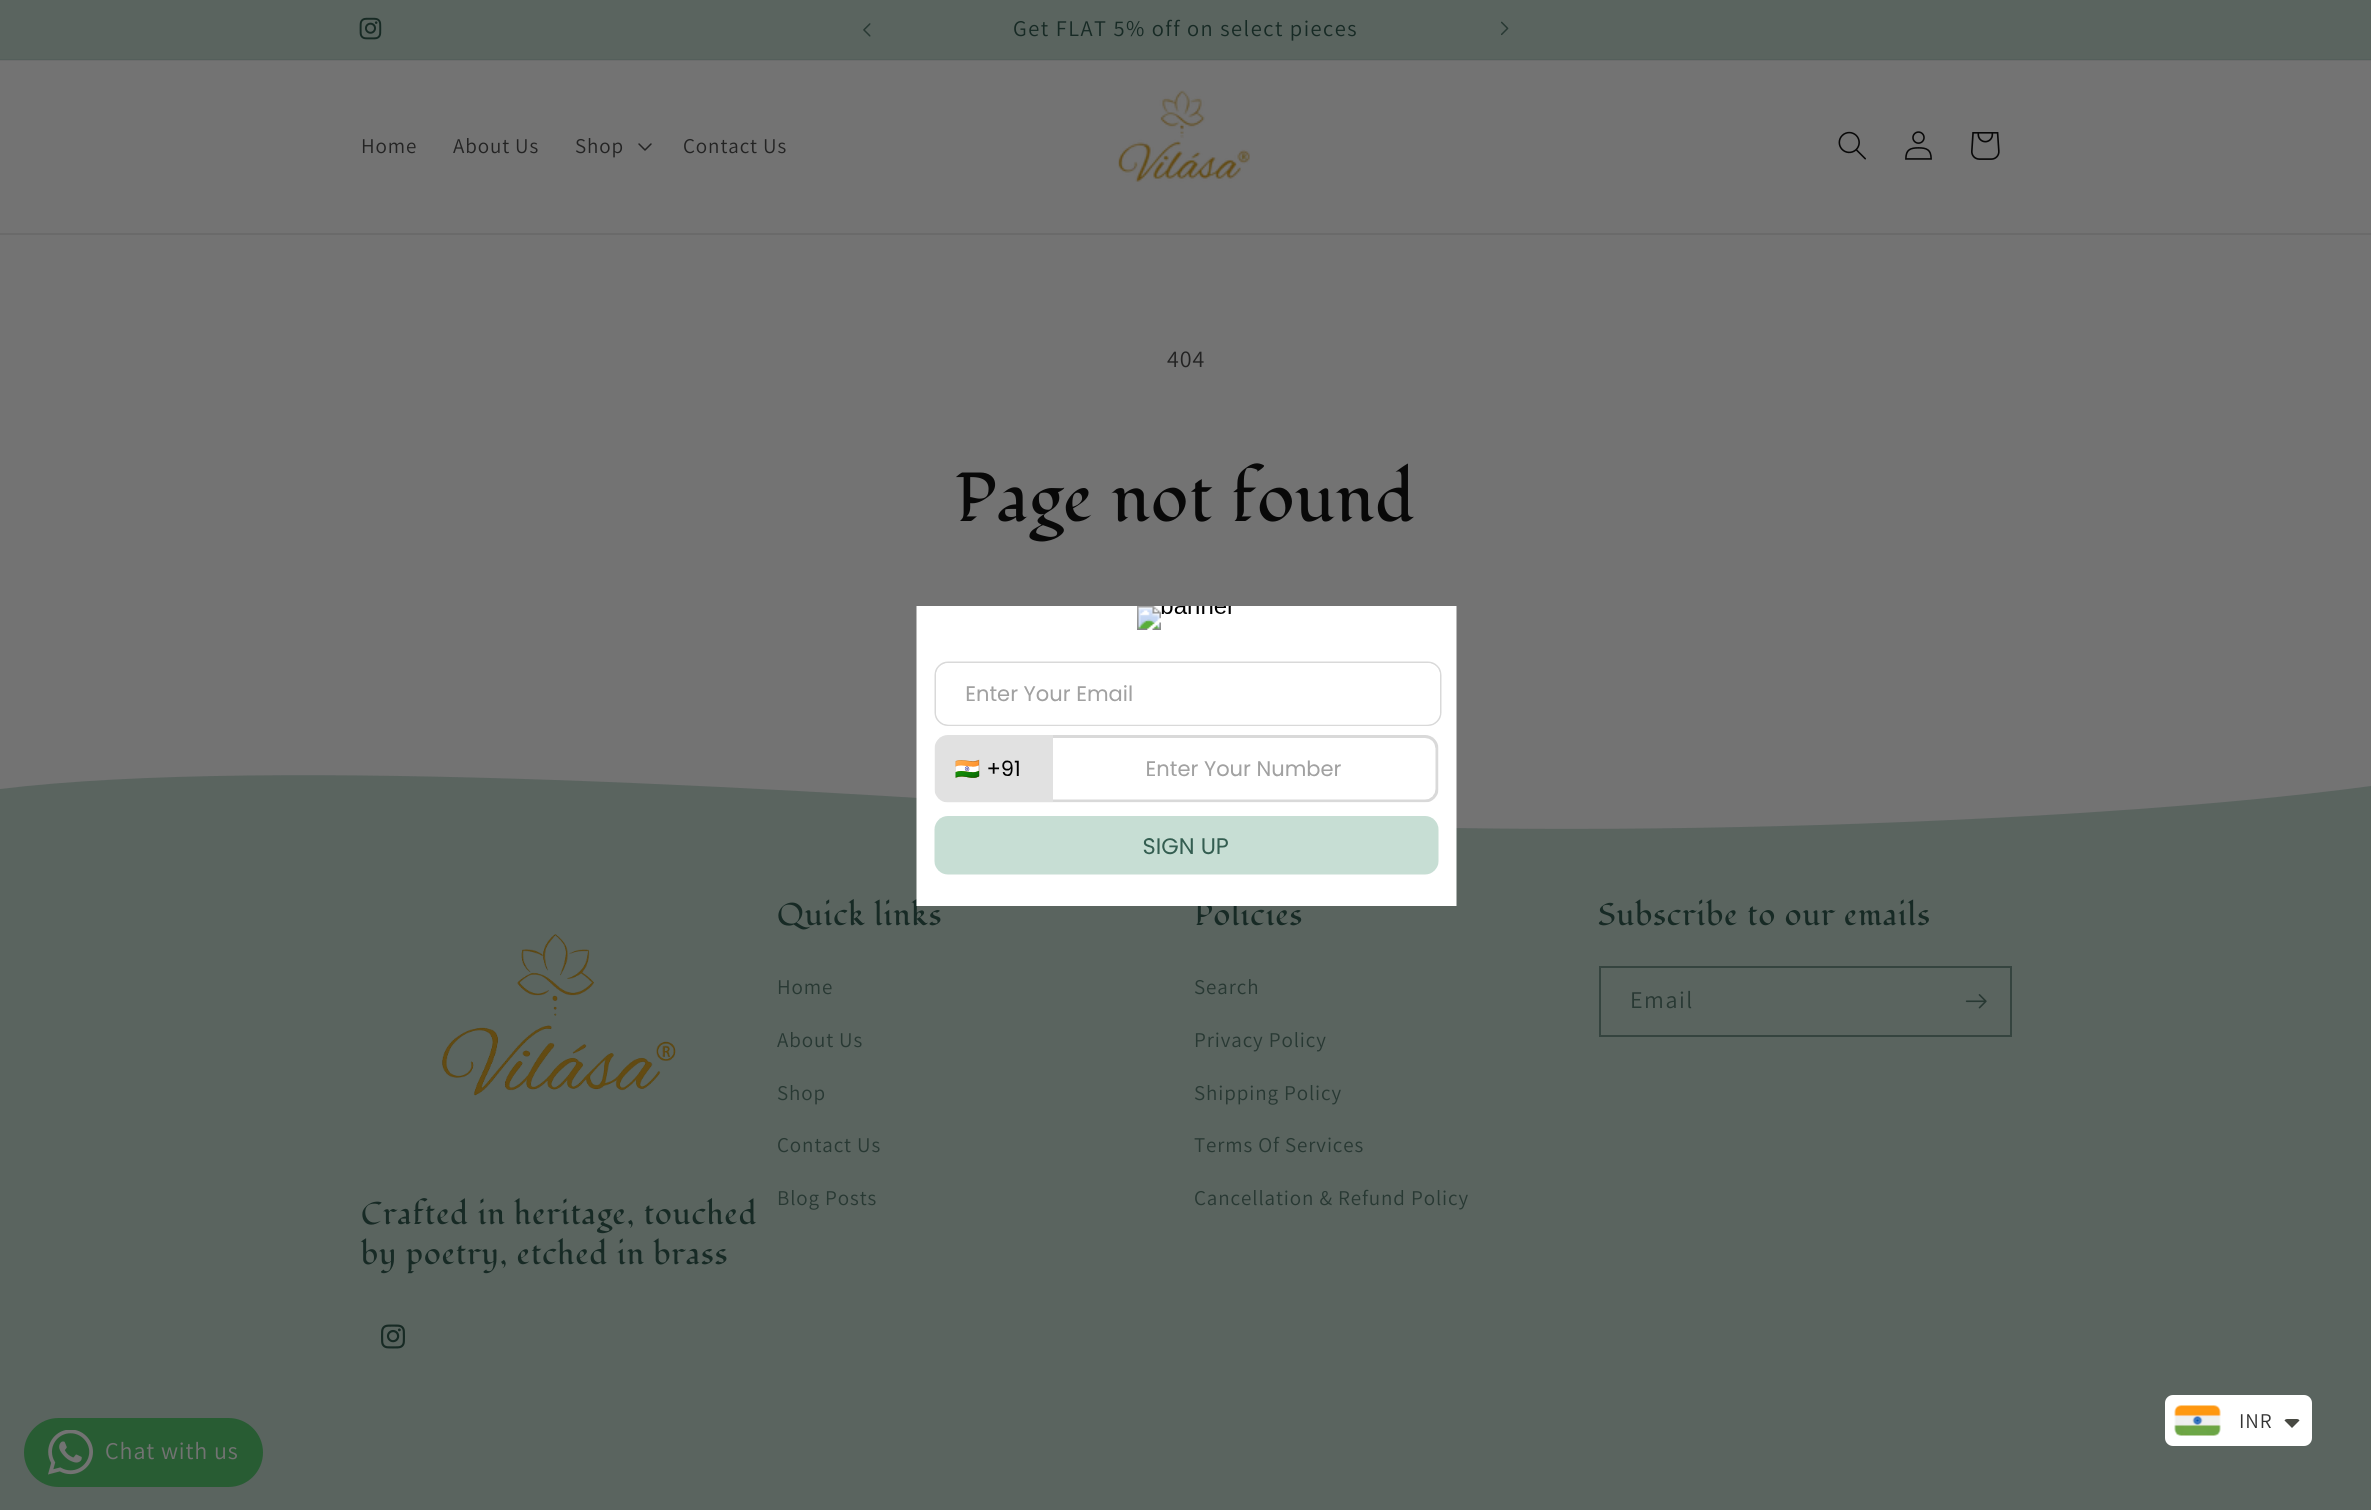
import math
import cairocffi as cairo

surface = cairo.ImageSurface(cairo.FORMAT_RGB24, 2371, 1510)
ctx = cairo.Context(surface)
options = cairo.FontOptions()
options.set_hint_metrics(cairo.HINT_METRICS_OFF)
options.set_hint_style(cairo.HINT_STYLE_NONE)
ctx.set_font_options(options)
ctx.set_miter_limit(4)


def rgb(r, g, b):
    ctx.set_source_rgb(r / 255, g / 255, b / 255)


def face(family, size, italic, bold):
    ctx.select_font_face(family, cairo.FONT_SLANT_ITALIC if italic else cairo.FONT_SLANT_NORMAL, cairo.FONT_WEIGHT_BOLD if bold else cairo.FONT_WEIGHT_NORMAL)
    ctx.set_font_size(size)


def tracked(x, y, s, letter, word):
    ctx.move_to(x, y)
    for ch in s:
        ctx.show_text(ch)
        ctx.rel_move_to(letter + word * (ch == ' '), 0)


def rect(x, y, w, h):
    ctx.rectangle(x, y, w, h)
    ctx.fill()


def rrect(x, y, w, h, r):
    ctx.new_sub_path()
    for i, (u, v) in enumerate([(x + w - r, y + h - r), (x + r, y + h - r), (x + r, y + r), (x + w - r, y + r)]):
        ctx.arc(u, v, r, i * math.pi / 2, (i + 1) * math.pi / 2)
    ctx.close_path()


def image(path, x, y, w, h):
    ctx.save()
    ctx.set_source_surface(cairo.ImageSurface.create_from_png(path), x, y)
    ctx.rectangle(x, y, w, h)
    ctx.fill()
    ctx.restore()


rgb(128, 128, 128)
ctx.paint()
rgb(120, 121, 121)
rect(0, 60, 2371, 1)
rgb(100, 111, 106)
rect(0, 0, 2371, 59)
rgb(94, 106, 101)
rect(0, 59, 2371, 1)
image('image1.png', 359, 17, 23, 23)
image('image2.png', 863, 23, 8, 14)
face('Assistant', 22.4, 0, 0)
rgb(26, 47, 41)
tracked(1013, 36, 'Get FLAT 5% off on select pieces', 1.5, 0)
image('image3.png', 1501, 21, 8, 15)
rgb(118, 118, 118)
rect(0, 233, 2371, 2)
face('Assistant', 21, 0, 0)
rgb(39, 39, 39)
tracked(361, 153, 'Home', 0.9, 0)
tracked(453, 153, 'About Us', 0.9, 0)
tracked(575, 153, 'Shop', 0.9, 0)
image('image4.png', 638, 143, 14, 8)
tracked(683, 153, 'Contact Us', 0.9, 0)
image('image5.png', 1118, 90, 132, 92)
image('image6.png', 1838, 131, 28, 29)
image('image7.png', 1905, 131, 27, 29)
image('image8.png', 1971, 132, 29, 28)
face('Assistant', 24, 0, 0)
tracked(1167, 367, '404', 0.9, 0)
face('Fondamento', 69, 0, 0)
rgb(9, 9, 9)
tracked(955, 521, 'Page not found', 1, 0)
rgb(100, 111, 106)
rect(0, 861, 2371, 649)
ctx.new_path()
ctx.move_to(0, 789)
ctx.curve_to(271, 756, 813, 789, 1186, 816)
ctx.curve_to(1491, 842, 2067, 827, 2371, 786)
ctx.line_to(2371, 861)
ctx.line_to(0, 861)
ctx.fill()
face('Fondamento', 31, 0, 0)
rgb(26, 47, 41)
tracked(777, 925, 'Quick links', 1, 0)
face('Assistant', 21, 0, 0)
rgb(45, 63, 57)
tracked(777, 994, 'Home', 0.9, 0)
tracked(777, 1047, 'About Us', 0.9, 0)
tracked(777, 1100, 'Shop', 0.9, 0)
tracked(777, 1152, 'Contact Us', 0.9, 0)
tracked(777, 1205, 'Blog Posts', 0.9, 0)
face('Fondamento', 31, 0, 0)
rgb(26, 47, 41)
tracked(1194, 925, 'Policies', 1, 0)
face('Assistant', 21, 0, 0)
rgb(45, 63, 57)
tracked(1194, 994, 'Search', 0.9, 0)
tracked(1194, 1047, 'Privacy Policy', 0.9, 0)
tracked(1194, 1100, 'Shipping Policy', 0.9, 0)
tracked(1194, 1152, 'Terms Of Services', 0.9, 0)
tracked(1194, 1205, 'Cancellation & Refund Policy', 0.9, 0)
image('image9.png', 442, 934, 234, 162)
face('Fondamento', 31, 0, 0)
rgb(26, 47, 41)
tracked(361, 1224, 'Crafted in heritage, touched', 1, 0)
tracked(361, 1264, 'by poetry, etched in brass', 1, 0)
image('image10.png', 381, 1324, 24, 25)
tracked(1598, 925, 'Subscribe to our emails', 1, 0)
ctx.rectangle(1600, 967, 411, 69)
rgb(59, 76, 70)
ctx.stroke()
face('Assistant', 24, 0, 0)
rgb(45, 63, 57)
tracked(1630, 1008, 'Email', 1.5, 0)
image('image11.png', 1965, 994, 22, 15)
rgb(45, 103, 57)
rrect(24, 1418, 239, 69, 34.5)
ctx.fill()
image('image13.png', 48, 1430, 45, 45)
rgb(128, 128, 128)
tracked(105, 1459, 'Chat with us', 0.9, 0)
image('image0.png', 0, 0, 2371, 1510)
rgb(255, 255, 255)
rrect(2165, 1395, 147, 51, 8)
ctx.fill()
image('image12.png', 2174, 1405, 47, 31)
face('Assistant', 21, 0, 0)
rgb(51, 51, 51)
tracked(2239, 1428, 'INR', 0.9, 0)
rgb(71, 73, 66)
ctx.new_path()
ctx.move_to(2287.5, 1419)
ctx.curve_to(2286, 1419, 2285, 1419.5, 2284.5, 1420.5)
ctx.line_to(2292, 1428)
ctx.line_to(2299.5, 1420.5)
ctx.curve_to(2299, 1419.5, 2298, 1419, 2296.5, 1419)
ctx.close_path()
ctx.fill()
surface.write_to_png('render.png')
